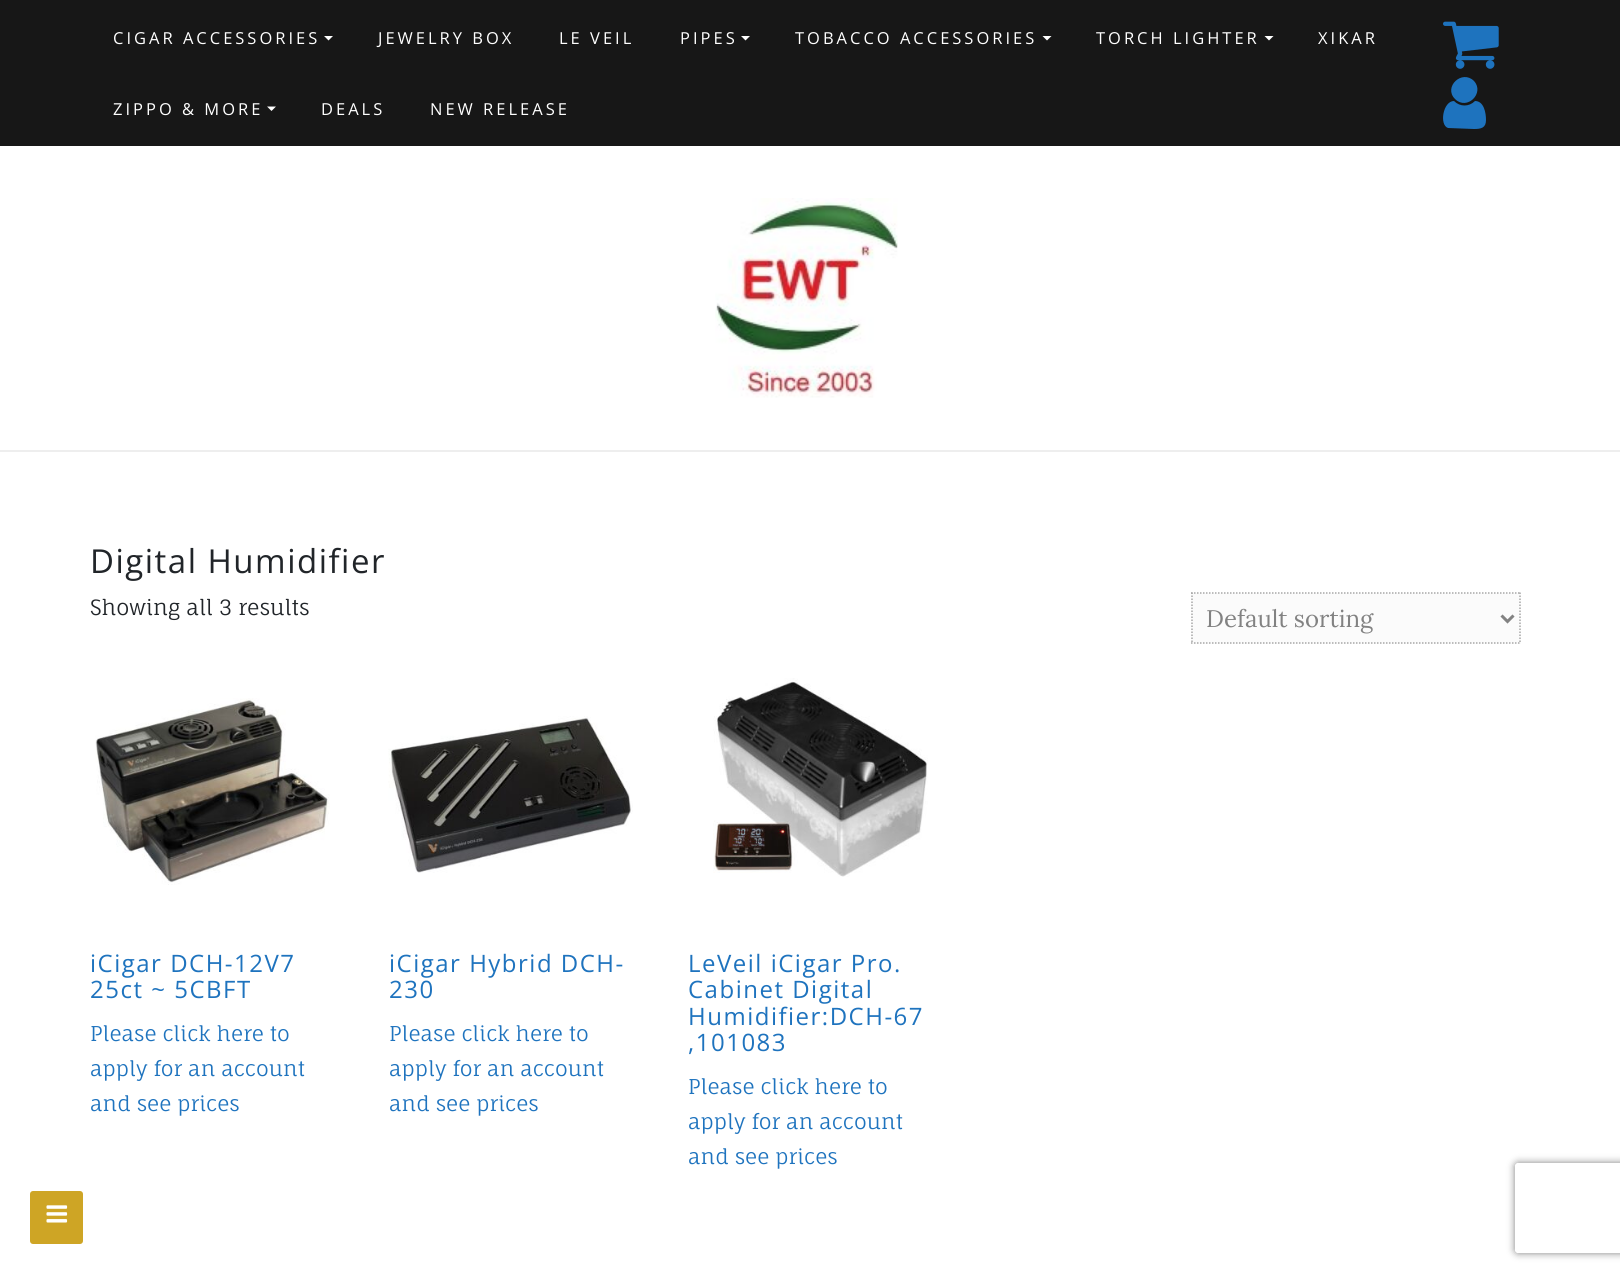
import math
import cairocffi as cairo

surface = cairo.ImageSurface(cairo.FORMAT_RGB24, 1620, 1273)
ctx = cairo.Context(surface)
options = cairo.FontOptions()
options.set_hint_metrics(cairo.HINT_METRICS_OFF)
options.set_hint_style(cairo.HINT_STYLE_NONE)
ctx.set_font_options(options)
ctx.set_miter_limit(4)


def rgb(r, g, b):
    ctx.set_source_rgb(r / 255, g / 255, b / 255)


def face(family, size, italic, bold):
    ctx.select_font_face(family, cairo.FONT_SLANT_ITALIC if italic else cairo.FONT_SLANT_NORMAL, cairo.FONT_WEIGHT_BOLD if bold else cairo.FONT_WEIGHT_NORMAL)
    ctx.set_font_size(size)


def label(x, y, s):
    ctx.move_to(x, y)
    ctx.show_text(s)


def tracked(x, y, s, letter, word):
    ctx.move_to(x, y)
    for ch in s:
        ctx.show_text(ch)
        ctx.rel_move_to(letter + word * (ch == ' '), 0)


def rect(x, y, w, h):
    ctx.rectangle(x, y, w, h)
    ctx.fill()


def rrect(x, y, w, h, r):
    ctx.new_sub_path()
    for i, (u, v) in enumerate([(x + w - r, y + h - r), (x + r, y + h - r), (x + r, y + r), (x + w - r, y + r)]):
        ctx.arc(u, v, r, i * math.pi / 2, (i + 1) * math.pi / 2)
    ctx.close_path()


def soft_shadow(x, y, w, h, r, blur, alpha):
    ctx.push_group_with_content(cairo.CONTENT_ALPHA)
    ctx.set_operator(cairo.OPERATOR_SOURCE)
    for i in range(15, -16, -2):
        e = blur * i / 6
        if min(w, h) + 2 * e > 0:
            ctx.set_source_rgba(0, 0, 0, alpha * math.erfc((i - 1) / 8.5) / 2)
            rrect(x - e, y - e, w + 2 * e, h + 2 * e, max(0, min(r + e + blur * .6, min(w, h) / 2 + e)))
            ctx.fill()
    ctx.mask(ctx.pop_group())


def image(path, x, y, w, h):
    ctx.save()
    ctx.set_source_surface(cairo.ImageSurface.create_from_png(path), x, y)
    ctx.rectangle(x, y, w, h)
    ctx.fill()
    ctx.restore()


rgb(255, 255, 255)
ctx.paint()
rgb(23, 23, 23)
rect(0, 0, 1620, 146)
face('Open Sans', 16.5, 0, 0)
rgb(255, 255, 255)
tracked(113, 44, 'CIGAR ACCESSORIES', 3, 0)
ctx.new_path()
ctx.move_to(324, 36)
ctx.line_to(333, 36)
ctx.line_to(328.5, 40.5)
ctx.close_path()
ctx.fill()
tracked(378, 44, 'JEWELRY BOX', 3, 0)
tracked(559, 44, 'LE VEIL', 3, 0)
tracked(680, 44, 'PIPES', 3, 0)
ctx.new_path()
ctx.move_to(741, 36)
ctx.line_to(750, 36)
ctx.line_to(745.5, 40.5)
ctx.close_path()
ctx.fill()
tracked(795, 44, 'TOBACCO ACCESSORIES', 3, 0)
ctx.new_path()
ctx.move_to(1042.5, 36)
ctx.line_to(1051.5, 36)
ctx.line_to(1047, 40.5)
ctx.close_path()
ctx.fill()
tracked(1096, 44, 'TORCH LIGHTER', 3, 0)
ctx.new_path()
ctx.move_to(1264.5, 36)
ctx.line_to(1273.5, 36)
ctx.line_to(1269, 40.5)
ctx.close_path()
ctx.fill()
tracked(1318, 44, 'XIKAR', 3, 0)
tracked(113, 115, 'ZIPPO & MORE', 3, 0)
ctx.new_path()
ctx.move_to(267, 106.5)
ctx.line_to(276, 106.5)
ctx.line_to(271.5, 111)
ctx.close_path()
ctx.fill()
tracked(321, 115, 'DEALS', 3, 0)
tracked(430, 115, 'NEW RELEASE', 3, 0)
image('image0.png', 1443, 21, 56, 48)
rgb(30, 115, 190)
ctx.new_path()
ctx.move_to(1486, 120)
ctx.curve_to(1486, 128, 1481, 129, 1474, 129)
ctx.line_to(1448, 128)
ctx.curve_to(1439, 125, 1443, 101, 1454, 101)
ctx.curve_to(1460, 107, 1469, 107, 1475, 101)
ctx.curve_to(1484, 101, 1486, 113, 1486, 120)
ctx.close_path()
ctx.move_to(1474, 81)
ctx.curve_to(1485, 93, 1467, 111, 1455, 99)
ctx.curve_to(1443, 87, 1462, 69, 1474, 81)
ctx.close_path()
ctx.fill()
rgb(238, 238, 238)
rect(0, 450, 1620, 2)
image('image1.png', 715, 198, 183, 200)
face('Open Sans', 33, 0, 0)
rgb(33, 37, 41)
tracked(90, 573, 'Digital Humidifier', 1.5, 0)
face('Fauna One', 21, 0, 0)
label(90, 615, 'Showing all 3 results')
rgb(251, 251, 251)
rect(1191, 593, 330, 51)
ctx.new_path()
ctx.move_to(1191, 593)
ctx.line_to(1521, 593)
rgb(167, 167, 167)
ctx.set_line_width(1.5)
ctx.set_dash([1.5, 1.5])
ctx.stroke()
ctx.new_path()
ctx.move_to(1520, 592.5)
ctx.line_to(1520, 643.5)
ctx.stroke()
ctx.new_path()
ctx.move_to(1191, 643)
ctx.line_to(1521, 643)
ctx.stroke()
ctx.new_path()
ctx.move_to(1192, 592.5)
ctx.line_to(1192, 643.5)
ctx.stroke()
ctx.new_path()
ctx.move_to(1501.5, 615.5)
ctx.line_to(1507.5, 621.5)
ctx.line_to(1513.5, 615.5)
rgb(130, 130, 130)
ctx.set_line_width(3)
ctx.set_dash([])
ctx.stroke()
face('Lora', 24, 0, 0)
label(1206, 627, 'Default sorting')
image('image2.png', 95, 698, 235, 187)
face('Open Sans', 24, 0, 0)
rgb(30, 115, 190)
tracked(90, 972, 'iCigar DCH-12V7', 1.5, 0)
tracked(90, 998, '25ct ~ 5CBFT', 1.5, 0)
face('Fauna One', 20.5, 0, 0)
label(90, 1041, 'Please click here to')
label(90, 1076, 'apply for an account')
label(90, 1111, 'and see prices')
image('image3.png', 388, 716, 245, 157)
face('Open Sans', 24, 0, 0)
tracked(389, 972, 'iCigar Hybrid DCH-', 1.5, 0)
tracked(389, 998, '230', 1.5, 0)
face('Fauna One', 20.5, 0, 0)
label(389, 1041, 'Please click here to')
label(389, 1076, 'apply for an account')
label(389, 1111, 'and see prices')
image('image4.png', 713, 678, 215, 199)
face('Open Sans', 24, 0, 0)
tracked(688, 972, 'LeVeil iCigar Pro.', 1.5, 0)
tracked(688, 998, 'Cabinet Digital', 1.5, 0)
tracked(688, 1025, 'Humidifier:DCH-67', 1.5, 0)
tracked(688, 1051, ',101083', 1.5, 0)
face('Fauna One', 20.5, 0, 0)
label(688, 1094, 'Please click here to')
label(688, 1129, 'apply for an account')
label(688, 1164, 'and see prices')
rgb(206, 165, 37)
rrect(30, 1191, 53, 53, 3)
ctx.fill()
image('image5.png', 46, 1205, 22, 18)
ctx.save()
ctx.set_fill_rule(cairo.FILL_RULE_EVEN_ODD)
ctx.new_path()
ctx.move_to(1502, 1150)
ctx.line_to(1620, 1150)
ctx.line_to(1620, 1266)
ctx.line_to(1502, 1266)
ctx.close_path()
ctx.move_to(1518, 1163)
ctx.line_to(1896, 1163)
ctx.curve_to(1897.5, 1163, 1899, 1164.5, 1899, 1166)
ctx.line_to(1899, 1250)
ctx.curve_to(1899, 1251.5, 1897.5, 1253, 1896, 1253)
ctx.line_to(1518, 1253)
ctx.curve_to(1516.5, 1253, 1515, 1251.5, 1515, 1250)
ctx.line_to(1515, 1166)
ctx.curve_to(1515, 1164.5, 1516.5, 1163, 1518, 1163)
ctx.close_path()
ctx.clip()
rgb(128, 128, 128)
soft_shadow(1515, 1163, 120, 90, 3, 4, 1)
ctx.restore()
surface.write_to_png('render.png')
